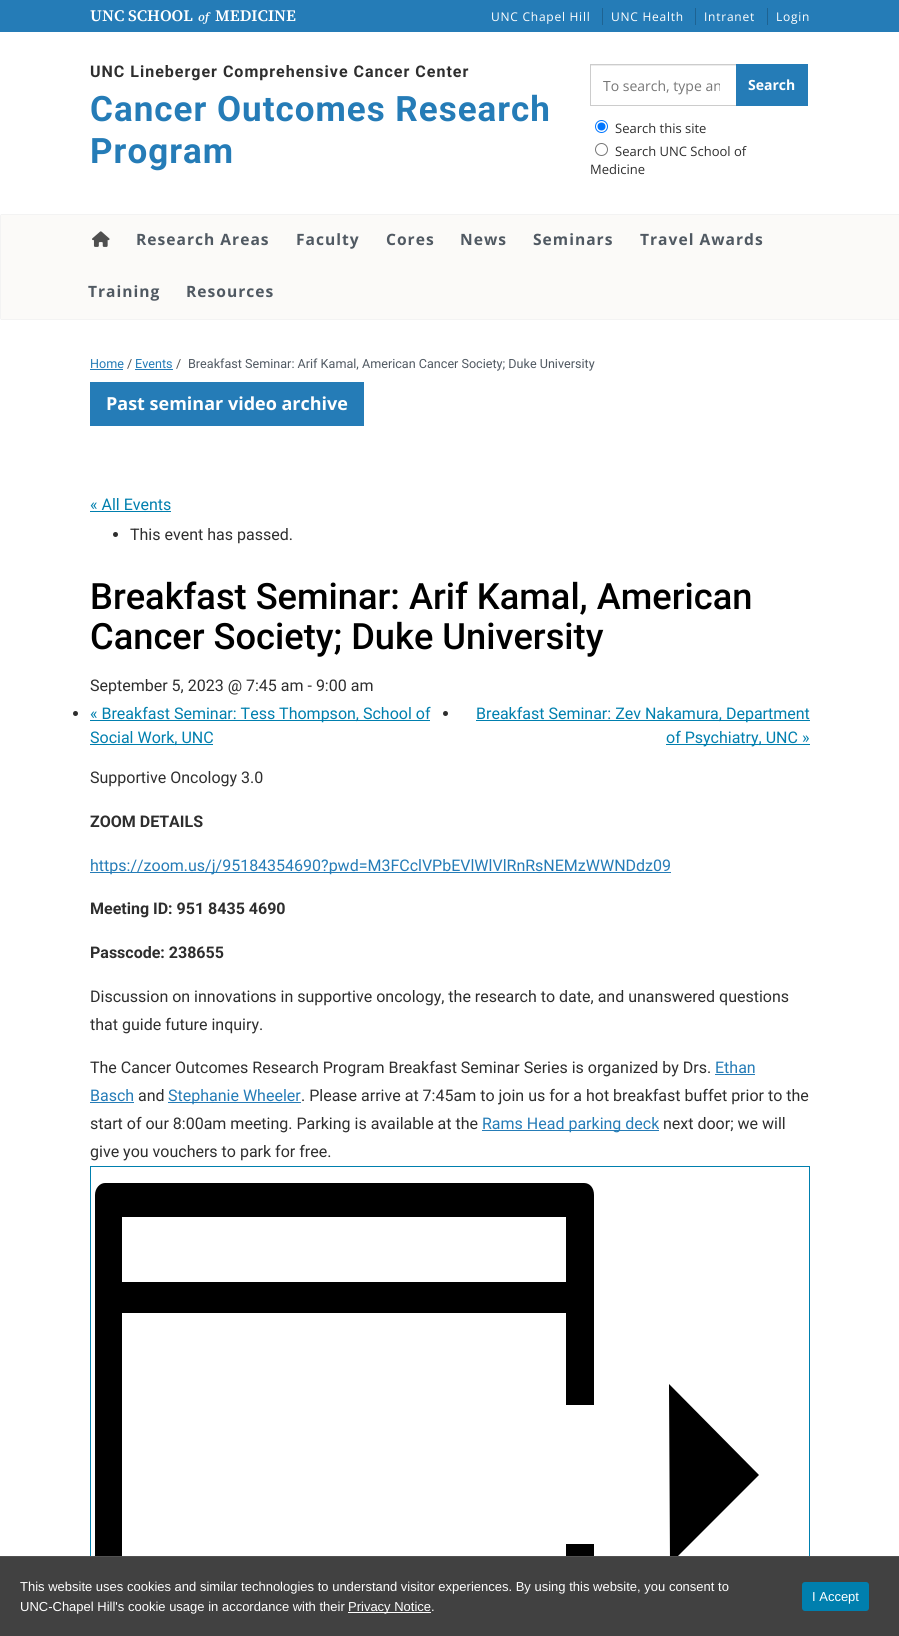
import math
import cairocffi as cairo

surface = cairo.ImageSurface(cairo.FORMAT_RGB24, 899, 1636)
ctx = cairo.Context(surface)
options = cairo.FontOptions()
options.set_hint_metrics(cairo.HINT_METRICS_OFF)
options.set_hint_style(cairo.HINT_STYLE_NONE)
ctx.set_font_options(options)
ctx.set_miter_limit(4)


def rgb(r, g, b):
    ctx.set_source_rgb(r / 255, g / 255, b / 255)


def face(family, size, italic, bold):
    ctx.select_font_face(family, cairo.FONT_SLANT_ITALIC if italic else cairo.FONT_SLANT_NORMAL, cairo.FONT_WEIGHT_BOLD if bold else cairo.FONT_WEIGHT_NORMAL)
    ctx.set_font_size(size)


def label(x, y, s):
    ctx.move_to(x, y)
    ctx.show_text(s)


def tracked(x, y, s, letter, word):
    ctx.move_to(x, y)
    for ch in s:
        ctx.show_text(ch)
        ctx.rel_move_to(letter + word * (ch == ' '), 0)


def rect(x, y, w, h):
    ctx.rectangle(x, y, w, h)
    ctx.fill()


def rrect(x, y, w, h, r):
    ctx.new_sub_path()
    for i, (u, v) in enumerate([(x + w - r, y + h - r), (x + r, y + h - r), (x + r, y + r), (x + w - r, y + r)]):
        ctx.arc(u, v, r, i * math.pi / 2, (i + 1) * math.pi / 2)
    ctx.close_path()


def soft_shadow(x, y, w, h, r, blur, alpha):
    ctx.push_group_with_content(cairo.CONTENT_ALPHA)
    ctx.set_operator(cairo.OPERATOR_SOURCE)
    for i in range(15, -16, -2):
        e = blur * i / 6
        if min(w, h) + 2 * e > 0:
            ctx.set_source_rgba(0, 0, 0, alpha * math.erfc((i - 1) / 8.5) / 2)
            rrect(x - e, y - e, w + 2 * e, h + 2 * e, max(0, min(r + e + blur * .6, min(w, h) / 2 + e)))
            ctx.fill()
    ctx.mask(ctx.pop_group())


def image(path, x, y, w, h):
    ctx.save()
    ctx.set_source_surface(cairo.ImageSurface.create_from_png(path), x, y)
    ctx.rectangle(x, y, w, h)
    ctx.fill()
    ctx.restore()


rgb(255, 255, 255)
ctx.paint()
rgb(37, 124, 183)
rect(0, 0, 899, 32)
face('Source Serif 4 SemiBold', 16, 0, 0)
rgb(255, 255, 255)
label(90, 21, 'UNC SCHOOL')
face('Source Serif 4 SemiBold', 12, 1, 0)
label(198, 21, 'of')
face('Source Serif 4 SemiBold', 16, 0, 0)
label(215, 21, 'MEDICINE')
face('Open Sans', 12, 0, 0)
tracked(491, 21, 'UNC Chapel Hill', 0.75, 0)
rgb(30, 99, 146)
rect(602, 8, 1, 17)
rgb(255, 255, 255)
tracked(611, 21, 'UNC Health', 0.75, 0)
rgb(30, 99, 146)
rect(695, 8, 1, 17)
rgb(255, 255, 255)
tracked(704, 21, 'Intranet', 0.75, 0)
rgb(30, 99, 146)
rect(767, 8, 1, 17)
rgb(255, 255, 255)
tracked(776, 21, 'Login', 0.75, 0)
face('Roboto', 16, 0, 1)
rgb(46, 46, 46)
tracked(90, 77, 'UNC Lineberger Comprehensive Cancer Center', 1, 0)
face('Roboto', 35, 0, 1)
rgb(37, 124, 183)
tracked(90, 121, 'Cancer Outcomes Research', 1, 0)
tracked(90, 163, 'Program', 1, 0)
rgb(236, 236, 236)
rect(591, 65, 145, 1)
ctx.rectangle(590.5, 64.5, 146, 41)
rgb(204, 204, 204)
ctx.set_line_width(1)
ctx.stroke()
ctx.save()
ctx.rectangle(603, 76, 117, 19)
ctx.clip()
face('Open Sans', 14, 0, 0)
rgb(118, 118, 118)
label(603, 91, 'To search, type an')
ctx.restore()
rgb(37, 124, 183)
rect(736, 64, 72, 42)
face('Open Sans', 14, 0, 1)
rgb(255, 255, 255)
label(748, 90, 'Search')
ctx.new_path()
ctx.arc(601.5, 126.5, 6, 0, 2 * math.pi)
rgb(0, 117, 255)
ctx.stroke()
ctx.arc(601.5, 126.5, 4, 0, 2 * math.pi)
ctx.fill()
face('Open Sans', 13, 0, 0)
rgb(46, 46, 46)
label(615, 133, 'Search this site')
ctx.new_path()
ctx.arc(601.5, 149.5, 6, 0, 2 * math.pi)
rgb(118, 118, 118)
ctx.stroke()
rgb(46, 46, 46)
label(615, 156, 'Search UNC School of')
label(590, 174, 'Medicine')
rgb(189, 189, 189)
soft_shadow(1, 215, 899, 104, 0, 0.5, 0.75)
rgb(251, 250, 248)
rect(1, 215, 898, 104)
image('image0.png', 92, 231, 18, 16)
face('Open Sans', 15.6, 0, 1)
rgb(80, 89, 98)
tracked(136, 245, 'Research Areas', 1, 0)
tracked(296, 245, 'Faculty', 1, 0)
tracked(386, 245, 'Cores', 1, 0)
tracked(460, 245, 'News', 1, 0)
tracked(533, 245, 'Seminars', 1, 0)
tracked(640, 245, 'Travel Awards', 1, 0)
tracked(88, 297, 'Training', 1, 0)
tracked(186, 297, 'Resources', 1, 0)
face('Roboto', 12.6, 0, 0)
rgb(37, 124, 183)
label(90, 368, 'Home')
rect(90, 369, 33, 1)
rgb(79, 79, 79)
label(127, 368, '/')
rgb(37, 124, 183)
label(135, 368, 'Events')
rect(135, 369, 38, 1)
rgb(79, 79, 79)
label(176, 368, '/')
rgb(80, 89, 98)
label(188, 368, 'Breakfast Seminar: Arif Kamal, American Cancer Society; Duke University')
rgb(37, 124, 183)
rect(90, 382, 274, 44)
face('Open Sans', 18, 0, 1)
rgb(255, 255, 255)
label(106, 410, 'Past seminar video archive')
face('Roboto', 16, 0, 0)
rgb(0, 127, 174)
label(90, 510, '« All Events')
rect(90, 511, 81, 1)
rgb(46, 46, 46)
ctx.new_path()
ctx.arc(115.5, 534.5, 2.5, 0, 2 * math.pi)
ctx.fill()
label(130, 540, 'This event has passed.')
face('Roboto Medium', 36.25, 0, 0)
rgb(0, 0, 0)
label(90, 609, 'Breakfast Seminar: Arif Kamal, American')
label(90, 649, 'Cancer Society; Duke University')
face('Roboto', 16, 0, 0)
rgb(46, 46, 46)
label(90, 691, 'September 5, 2023 @ 7:45 am - 9:00 am')
ctx.new_path()
ctx.arc(75.5, 713.5, 2.5, 0, 2 * math.pi)
ctx.fill()
rgb(0, 127, 174)
rect(90, 720, 340, 1)
label(90, 719, '« Breakfast Seminar: Tess Thompson, School of')
rect(90, 744, 123, 1)
label(90, 743, 'Social Work, UNC')
rgb(46, 46, 46)
ctx.new_path()
ctx.arc(445.5, 713.5, 2.5, 0, 2 * math.pi)
ctx.fill()
rgb(0, 127, 174)
rect(476, 720, 334, 1)
label(476, 719, 'Breakfast Seminar: Zev Nakamura, Department')
rect(666, 744, 144, 1)
label(666, 743, 'of Psychiatry, UNC »')
rgb(46, 46, 46)
label(90, 783, 'Supportive Oncology 3.0')
face('Roboto', 16, 0, 1)
label(90, 827, 'ZOOM DETAILS')
rgb(37, 124, 183)
rect(90, 872, 581, 1)
face('Roboto', 16, 0, 0)
label(90, 871, 'https://zoom.us/j/95184354690?pwd=M3FCclVPbEVlWlVlRnRsNEMzWWNDdz09')
face('Roboto', 16, 0, 1)
rgb(46, 46, 46)
label(90, 914, 'Meeting ID: 951 8435 4690')
label(90, 958, 'Passcode: 238655')
face('Roboto', 16, 0, 0)
label(90, 1002, 'Discussion on innovations in supportive oncology, the research to date, and unanswered questions')
label(90, 1030, 'that guide future inquiry.')
label(90, 1073, 'The Cancer Outcomes Research Program Breakfast Seminar Series is organized by Drs.')
rgb(37, 124, 183)
label(715, 1073, 'Ethan')
rect(715, 1074, 40, 1)
label(90, 1101, 'Basch')
rect(90, 1102, 44, 1)
rgb(46, 46, 46)
label(138, 1101, 'and')
rgb(37, 124, 183)
rect(168, 1102, 133, 1)
label(168, 1101, 'Stephanie Wheeler')
rgb(46, 46, 46)
label(301, 1101, '. Please arrive at 7:45am to join us for a hot breakfast buffet prior to the')
label(90, 1129, 'start of our 8:00am meeting. Parking is available at the')
rgb(37, 124, 183)
rect(482, 1130, 177, 1)
label(482, 1129, 'Rams Head parking deck')
rgb(46, 46, 46)
label(663, 1129, 'next door; we will')
label(90, 1157, 'give you vouchers to park for free.')
ctx.rectangle(90.5, 1166.5, 719, 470)
rgb(0, 127, 174)
ctx.stroke()
rgb(0, 0, 0)
ctx.set_fill_rule(cairo.FILL_RULE_EVEN_ODD)
ctx.new_path()
ctx.move_to(95, 1195)
ctx.line_to(95, 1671)
ctx.curve_to(95, 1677, 100, 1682, 105, 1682)
ctx.line_to(584, 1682)
ctx.curve_to(590, 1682, 594, 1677, 594, 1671)
ctx.line_to(594, 1195)
ctx.curve_to(594, 1188, 590, 1183, 584, 1183)
ctx.line_to(105, 1183)
ctx.curve_to(100, 1183, 95, 1188, 95, 1195)
ctx.close_path()
ctx.move_to(594, 1405)
ctx.line_to(566, 1405)
ctx.line_to(566, 1313)
ctx.line_to(122, 1313)
ctx.line_to(122, 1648)
ctx.line_to(566, 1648)
ctx.line_to(566, 1544)
ctx.line_to(594, 1544)
ctx.close_path()
ctx.move_to(123, 1217)
ctx.line_to(566, 1217)
ctx.line_to(566, 1282)
ctx.line_to(122, 1282)
ctx.line_to(122, 1217)
ctx.close_path()
ctx.fill()
ctx.set_fill_rule(cairo.FILL_RULE_WINDING)
ctx.new_path()
ctx.move_to(731, 1474)
ctx.line_to(350, 1474)
ctx.move_to(669, 1384)
ctx.line_to(759, 1475)
ctx.line_to(670, 1564)
ctx.fill()
rgb(65, 65, 65)
rect(0, 1557, 899, 79)
rgb(81, 81, 81)
rect(0, 1556, 899, 1)
face('Liberation Sans', 13, 0, 0)
rgb(255, 255, 255)
label(20, 1591, 'This website uses cookies and similar technologies to understand visitor experiences. By using this website, you consent to')
label(20, 1611, 'UNC-Chapel Hill\'s cookie usage in accordance with their')
rect(348, 1612, 83, 1)
label(348, 1611, 'Privacy Notice.')
rgb(0, 127, 174)
rrect(802, 1582, 67, 29, 3)
ctx.fill()
rgb(255, 255, 255)
label(812, 1601, 'I Accept')
surface.write_to_png('render.png')
